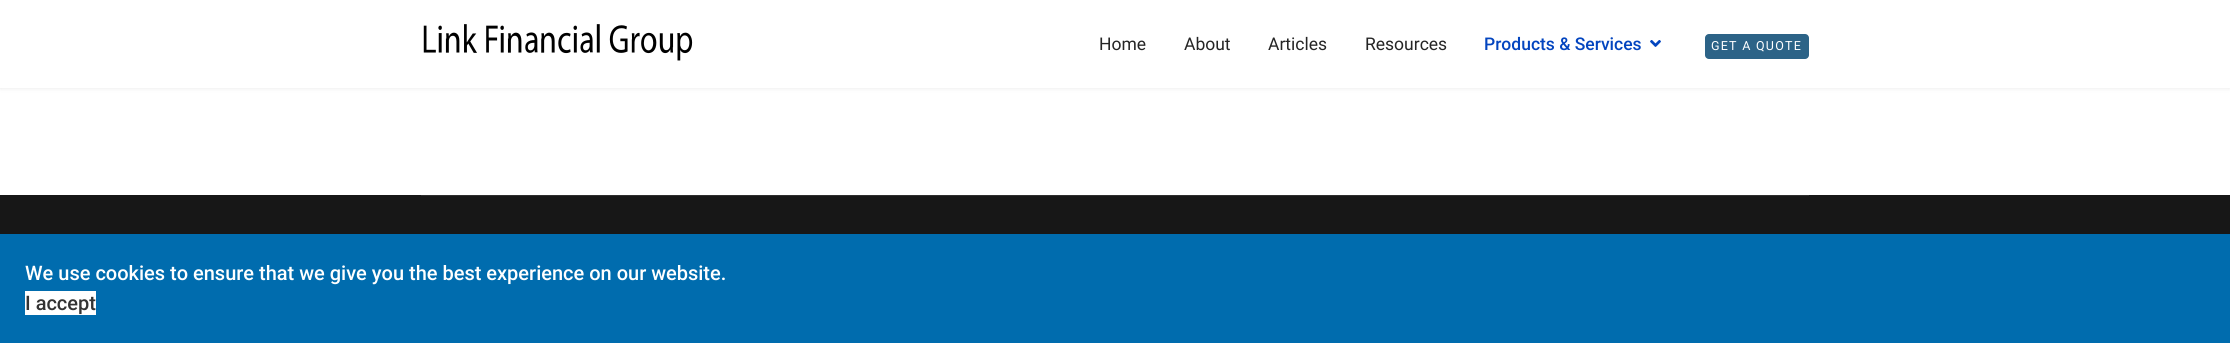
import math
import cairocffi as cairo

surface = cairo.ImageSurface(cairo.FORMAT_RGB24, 2230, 343)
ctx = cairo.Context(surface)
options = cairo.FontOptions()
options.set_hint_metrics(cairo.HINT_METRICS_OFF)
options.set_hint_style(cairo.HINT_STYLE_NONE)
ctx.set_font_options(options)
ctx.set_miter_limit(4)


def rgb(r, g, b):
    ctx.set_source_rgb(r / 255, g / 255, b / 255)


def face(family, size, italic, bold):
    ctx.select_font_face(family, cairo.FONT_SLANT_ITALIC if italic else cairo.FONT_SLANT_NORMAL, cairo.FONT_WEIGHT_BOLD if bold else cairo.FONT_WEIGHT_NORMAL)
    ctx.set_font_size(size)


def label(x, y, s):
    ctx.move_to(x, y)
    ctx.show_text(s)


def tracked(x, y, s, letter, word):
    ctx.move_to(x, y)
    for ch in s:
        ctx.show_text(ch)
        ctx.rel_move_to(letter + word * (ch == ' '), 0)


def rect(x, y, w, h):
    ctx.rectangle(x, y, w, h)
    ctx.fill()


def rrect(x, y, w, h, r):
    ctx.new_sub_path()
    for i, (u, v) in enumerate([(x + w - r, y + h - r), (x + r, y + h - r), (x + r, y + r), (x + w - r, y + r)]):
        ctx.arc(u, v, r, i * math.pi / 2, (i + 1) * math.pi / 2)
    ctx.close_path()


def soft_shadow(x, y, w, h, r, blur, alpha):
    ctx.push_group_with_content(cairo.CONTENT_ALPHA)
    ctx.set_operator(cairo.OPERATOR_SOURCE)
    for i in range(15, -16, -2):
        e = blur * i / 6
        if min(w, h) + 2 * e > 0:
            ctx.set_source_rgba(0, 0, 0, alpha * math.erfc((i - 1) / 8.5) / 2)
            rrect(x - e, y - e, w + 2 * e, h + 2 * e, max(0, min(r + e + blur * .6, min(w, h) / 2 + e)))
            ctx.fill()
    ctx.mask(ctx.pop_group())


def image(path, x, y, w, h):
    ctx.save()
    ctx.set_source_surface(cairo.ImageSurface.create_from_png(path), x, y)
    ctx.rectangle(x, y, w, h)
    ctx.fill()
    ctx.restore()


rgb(255, 255, 255)
ctx.paint()
rgb(0, 0, 0)
soft_shadow(0, 0, 2230, 88, 0, 2.5, 0.1)
rgb(255, 255, 255)
rect(0, 0, 2230, 88)
image('image0.png', 423, 24, 270, 37)
face('Roboto', 17.5, 0, 0)
rgb(37, 37, 37)
label(1099, 50, 'Home')
label(1184, 50, 'About')
label(1268, 50, 'Articles')
label(1365, 50, 'Resources')
face('Roboto Medium', 17.5, 0, 0)
rgb(3, 69, 191)
label(1484, 50, 'Products & Services')
image('image1.png', 1650, 40, 11, 7)
rgb(44, 99, 135)
rrect(1705, 34, 104, 25, 4)
ctx.fill()
face('Roboto', 12.5, 0, 0)
rgb(255, 255, 255)
tracked(1711, 50, 'GET A QUOTE', 1.25, 0)
rgb(23, 23, 23)
rect(0, 195, 2230, 39)
rgb(46, 46, 46)
rect(421, 195, 1388, 1)
rgb(0, 108, 174)
rect(0, 234, 2230, 109)
face('Roboto Medium', 20, 0, 0)
rgb(255, 255, 255)
label(25, 280, 'We use cookies to ensure that we give you the best experience on our website.')
rect(25, 291, 71, 24)
rgb(51, 51, 51)
label(25, 310, 'I accept')
surface.write_to_png('render.png')
